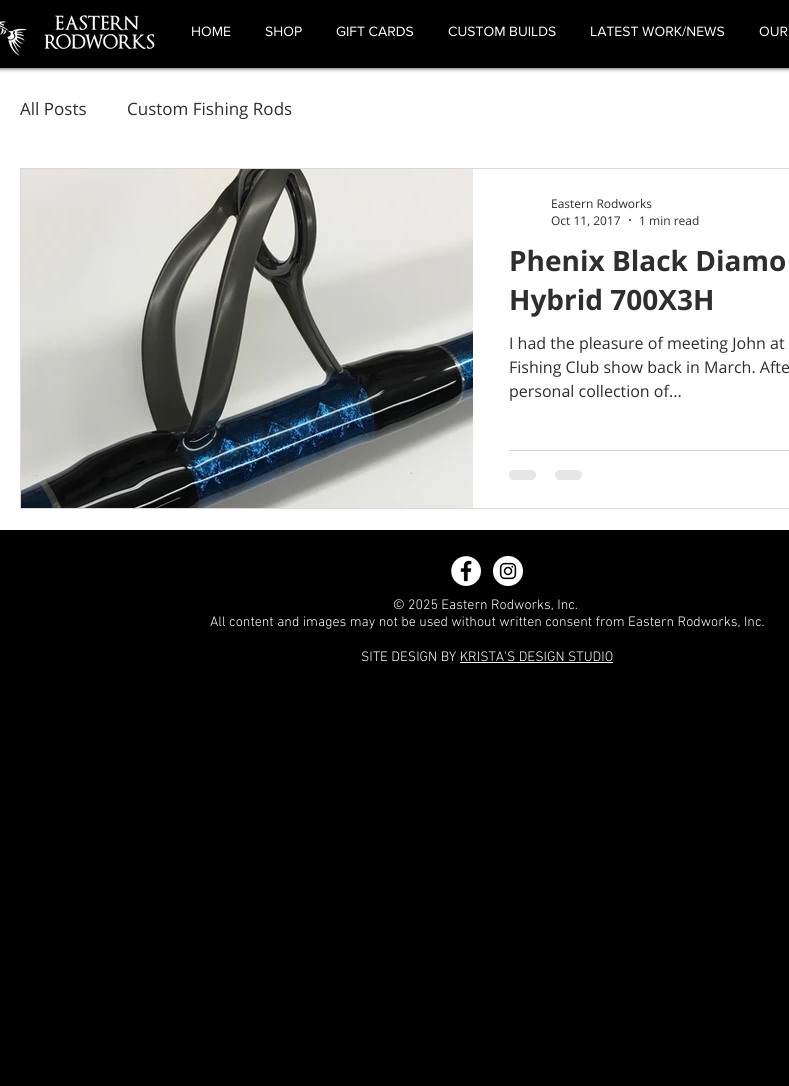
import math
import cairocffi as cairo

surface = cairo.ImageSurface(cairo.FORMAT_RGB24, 789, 1086)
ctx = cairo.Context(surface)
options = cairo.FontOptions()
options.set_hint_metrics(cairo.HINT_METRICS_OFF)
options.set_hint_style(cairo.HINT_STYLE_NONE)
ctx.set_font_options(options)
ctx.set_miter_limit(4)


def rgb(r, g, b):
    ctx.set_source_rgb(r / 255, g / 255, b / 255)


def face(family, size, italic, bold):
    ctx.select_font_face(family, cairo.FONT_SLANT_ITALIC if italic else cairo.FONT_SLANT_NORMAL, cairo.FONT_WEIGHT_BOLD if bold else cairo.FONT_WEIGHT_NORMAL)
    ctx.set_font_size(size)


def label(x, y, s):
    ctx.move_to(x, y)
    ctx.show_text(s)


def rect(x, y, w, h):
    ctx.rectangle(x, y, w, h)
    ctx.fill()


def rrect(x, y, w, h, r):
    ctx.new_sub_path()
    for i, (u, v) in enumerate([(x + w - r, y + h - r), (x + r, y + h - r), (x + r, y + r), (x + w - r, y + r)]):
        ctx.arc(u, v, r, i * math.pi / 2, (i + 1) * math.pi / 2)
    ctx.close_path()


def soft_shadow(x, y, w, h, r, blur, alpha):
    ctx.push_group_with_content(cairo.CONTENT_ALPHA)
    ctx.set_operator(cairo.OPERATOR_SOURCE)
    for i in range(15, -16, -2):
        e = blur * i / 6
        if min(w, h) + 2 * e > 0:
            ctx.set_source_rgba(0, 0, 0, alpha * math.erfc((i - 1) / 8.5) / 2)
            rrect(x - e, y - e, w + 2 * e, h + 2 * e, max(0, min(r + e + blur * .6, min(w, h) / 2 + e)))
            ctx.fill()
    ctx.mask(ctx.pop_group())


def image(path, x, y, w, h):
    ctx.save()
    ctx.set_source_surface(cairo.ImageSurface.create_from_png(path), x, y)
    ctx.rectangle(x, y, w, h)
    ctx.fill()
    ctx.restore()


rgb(0, 0, 0)
ctx.paint()
rgb(255, 255, 255)
rect(0, 68, 789, 462)
ctx.save()
ctx.rectangle(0, 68, 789, 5)
ctx.clip()
rgb(0, 0, 0)
soft_shadow(0, 1, 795, 68, 0, 2, 0.6)
ctx.restore()
image('image0.png', 0, 15, 155, 41)
face('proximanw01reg', 14, 0, 0)
label(191, 36, 'HOME')
label(265, 36, 'SHOP')
label(336, 36, 'GIFT CARDS')
label(448, 36, 'CUSTOM BUILDS')
label(590, 36, 'LATEST WORK/NEWS')
label(759, 36, 'OUR')
face('Open Sans', 17, 0, 0)
rgb(47, 46, 46)
label(20, 115, 'All Posts')
label(127, 115, 'Custom Fishing Rods')
ctx.rectangle(20.5, 168.5, 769, 340)
rgb(221, 215, 215)
ctx.set_line_width(1)
ctx.stroke()
image('image1.png', 21, 169, 452, 339)
face('Open Sans', 12, 0, 0)
rgb(47, 46, 46)
label(551, 208, 'Eastern Rodworks')
label(551, 225, 'Oct 11, 2017')
ctx.new_path()
ctx.arc(630, 220, 1, 0, 2 * math.pi)
ctx.fill()
label(639, 225, '1 min read')
face('Open Sans', 28, 0, 1)
label(509, 271, 'Phenix Black Diamo')
label(509, 310, 'Hybrid 700X3H')
face('Open Sans', 16, 0, 0)
label(509, 349, 'I had the pleasure of meeting John at')
label(509, 373, 'Fishing Club show back in March. Afte')
label(509, 397, 'personal collection of...')
rgb(213, 213, 213)
rect(509, 450, 280, 1)
rgb(230, 230, 230)
rrect(509, 470, 27, 10, 5)
ctx.fill()
rrect(555, 470, 27, 10, 5)
ctx.fill()
image('image2.png', 451, 556, 30, 30)
image('image3.png', 493, 556, 30, 30)
face('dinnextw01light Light', 14, 0, 0)
rgb(255, 255, 255)
label(393, 609, '© 2025 Eastern Rodworks, Inc.')
label(210, 626, 'All content and images may not be used without written consent from Eastern Rodworks, Inc.')
label(361, 661, 'SITE DESIGN BY KRISTA\'S DESIGN STUDIO')
rect(460, 662, 153, 1)
surface.write_to_png('render.png')
